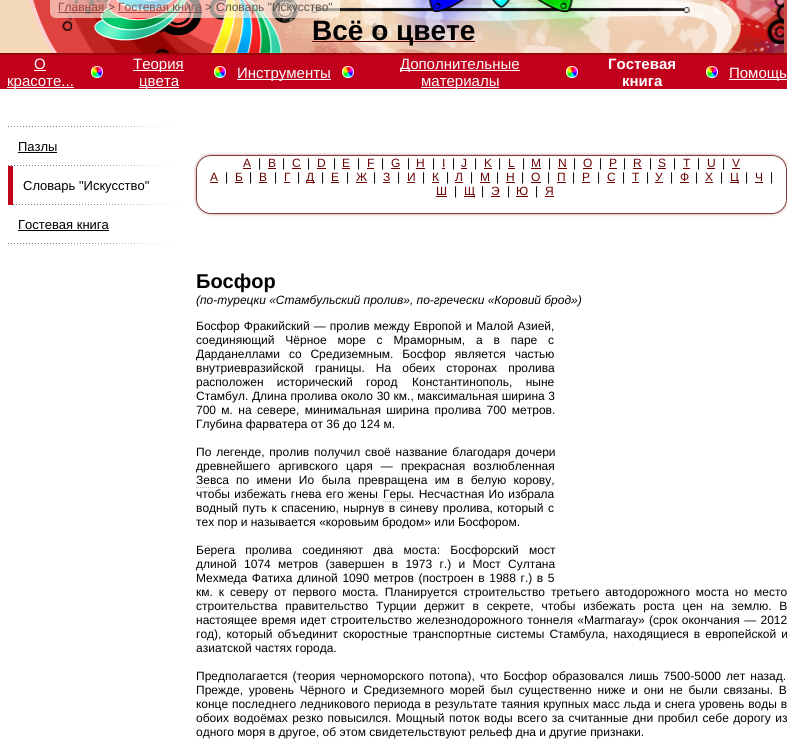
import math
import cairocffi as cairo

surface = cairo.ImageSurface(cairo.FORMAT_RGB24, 787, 756)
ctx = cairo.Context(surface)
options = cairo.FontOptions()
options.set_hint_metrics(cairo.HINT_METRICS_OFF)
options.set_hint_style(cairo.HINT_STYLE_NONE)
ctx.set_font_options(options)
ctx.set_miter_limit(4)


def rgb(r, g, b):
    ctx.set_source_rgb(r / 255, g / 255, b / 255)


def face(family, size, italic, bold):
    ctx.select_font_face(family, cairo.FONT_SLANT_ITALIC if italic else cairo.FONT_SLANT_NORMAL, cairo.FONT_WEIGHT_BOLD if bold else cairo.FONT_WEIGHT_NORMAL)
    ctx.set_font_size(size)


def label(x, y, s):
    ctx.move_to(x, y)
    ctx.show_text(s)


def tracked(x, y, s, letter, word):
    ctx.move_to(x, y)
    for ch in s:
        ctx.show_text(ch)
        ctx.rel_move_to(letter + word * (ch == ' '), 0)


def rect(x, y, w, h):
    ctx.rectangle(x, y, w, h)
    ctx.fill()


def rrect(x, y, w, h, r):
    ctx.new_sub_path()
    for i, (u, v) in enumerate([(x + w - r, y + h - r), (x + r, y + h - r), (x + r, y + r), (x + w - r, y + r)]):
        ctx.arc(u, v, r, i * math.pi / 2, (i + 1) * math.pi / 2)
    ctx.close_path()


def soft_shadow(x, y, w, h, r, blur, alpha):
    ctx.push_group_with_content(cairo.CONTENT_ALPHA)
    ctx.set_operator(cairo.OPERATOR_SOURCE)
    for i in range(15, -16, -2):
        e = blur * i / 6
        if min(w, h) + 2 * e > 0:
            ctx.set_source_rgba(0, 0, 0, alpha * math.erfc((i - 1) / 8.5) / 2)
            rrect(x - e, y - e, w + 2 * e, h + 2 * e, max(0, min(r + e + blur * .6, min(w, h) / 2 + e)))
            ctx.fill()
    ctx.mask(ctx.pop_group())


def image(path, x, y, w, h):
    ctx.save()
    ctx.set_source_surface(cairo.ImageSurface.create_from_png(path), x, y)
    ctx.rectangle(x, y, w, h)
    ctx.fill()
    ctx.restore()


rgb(255, 255, 255)
ctx.paint()
image('image1.png', 3, 0, 781, 53)
ctx.set_source_rgba(1, 0.969, 0.922, 0.6)
ctx.new_path()
ctx.move_to(50, 0)
ctx.line_to(340, 0)
ctx.line_to(340, 12)
ctx.curve_to(340, 15.5, 337.5, 18, 334, 18)
ctx.line_to(56, 18)
ctx.curve_to(52.5, 18, 50, 15.5, 50, 12)
ctx.close_path()
ctx.fill()
face('Liberation Sans', 12, 0, 0)
rgb(154, 66, 63)
label(58, 11, 'Главная')
ctx.set_source_rgba(0.416, 0.008, 0.008, 0.6)
rect(58, 12, 46, 1)
rgb(100, 71, 68)
label(108, 11, '>')
rgb(144, 80, 79)
label(118, 11, 'Гостевая книга')
ctx.set_source_rgba(0.416, 0.008, 0.008, 0.6)
rect(118, 12, 84, 1)
rgb(89, 70, 66)
label(205, 11, '>')
rgb(90, 82, 75)
label(216, 11, 'Словарь "Искусство"')
image('image0.png', 8, 126, 170, 1)
image('image0.png', 8, 165, 170, 1)
face('Liberation Sans', 13, 0, 0)
rgb(0, 0, 0)
label(18, 151, 'Пазлы')
rect(18, 152, 39, 1)
image('image0.png', 13, 204, 170, 1)
rgb(193, 0, 27)
rect(8, 166, 5, 39)
rgb(0, 0, 0)
label(23, 190, 'Словарь "Искусство"')
image('image0.png', 8, 243, 170, 1)
label(18, 229, 'Гостевая книга')
rect(18, 230, 91, 1)
ctx.save()
ctx.set_fill_rule(cairo.FILL_RULE_EVEN_ODD)
ctx.new_path()
ctx.move_to(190, 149)
ctx.line_to(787, 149)
ctx.line_to(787, 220)
ctx.line_to(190, 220)
ctx.close_path()
ctx.move_to(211, 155)
ctx.line_to(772, 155)
ctx.curve_to(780.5, 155, 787, 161.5, 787, 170)
ctx.line_to(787, 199)
ctx.curve_to(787, 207.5, 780.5, 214, 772, 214)
ctx.line_to(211, 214)
ctx.curve_to(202.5, 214, 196, 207.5, 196, 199)
ctx.line_to(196, 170)
ctx.curve_to(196, 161.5, 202.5, 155, 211, 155)
ctx.close_path()
ctx.clip()
rgb(181, 137, 137)
soft_shadow(196, 155, 591, 59, 15, 1.5, 1)
ctx.restore()
rrect(196.5, 155.5, 590, 58, 14.5)
rgb(135, 59, 59)
ctx.set_line_width(1)
ctx.stroke()
face('Liberation Sans', 12, 0, 0)
rgb(106, 2, 2)
label(243, 167, 'A')
rect(243, 168, 8, 1)
rgb(0, 0, 0)
label(258, 167, '|')
rgb(106, 2, 2)
label(268, 167, 'B')
rect(268, 168, 8, 1)
rgb(0, 0, 0)
label(282, 167, '|')
rgb(106, 2, 2)
label(292, 167, 'C')
rect(292, 168, 9, 1)
rgb(0, 0, 0)
label(307, 167, '|')
rgb(106, 2, 2)
label(317, 167, 'D')
rect(317, 168, 9, 1)
rgb(0, 0, 0)
label(333, 167, '|')
rgb(106, 2, 2)
label(342, 167, 'E')
rect(342, 168, 8, 1)
rgb(0, 0, 0)
label(357, 167, '|')
rgb(106, 2, 2)
label(367, 167, 'F')
rect(367, 168, 7, 1)
rgb(0, 0, 0)
label(381, 167, '|')
rgb(106, 2, 2)
label(391, 167, 'G')
rect(391, 168, 9, 1)
rgb(0, 0, 0)
label(407, 167, '|')
rgb(106, 2, 2)
label(416, 167, 'H')
rect(416, 168, 9, 1)
rgb(0, 0, 0)
label(432, 167, '|')
rgb(106, 2, 2)
label(442, 167, 'I')
rect(442, 168, 3, 1)
rgb(0, 0, 0)
label(452, 167, '|')
rgb(106, 2, 2)
label(461, 167, 'J')
rect(461, 168, 6, 1)
rgb(0, 0, 0)
label(474, 167, '|')
rgb(106, 2, 2)
label(484, 167, 'K')
rect(484, 168, 8, 1)
rgb(0, 0, 0)
label(498, 167, '|')
rgb(106, 2, 2)
label(508, 167, 'L')
rect(508, 168, 7, 1)
rgb(0, 0, 0)
label(522, 167, '|')
rgb(106, 2, 2)
label(531, 167, 'M')
rect(531, 168, 10, 1)
rgb(0, 0, 0)
label(548, 167, '|')
rgb(106, 2, 2)
label(558, 167, 'N')
rect(558, 168, 9, 1)
rgb(0, 0, 0)
label(573, 167, '|')
rgb(106, 2, 2)
label(583, 167, 'O')
rect(583, 168, 9, 1)
rgb(0, 0, 0)
label(599, 167, '|')
rgb(106, 2, 2)
label(609, 167, 'P')
rect(609, 168, 8, 1)
rgb(0, 0, 0)
label(623, 167, '|')
rgb(106, 2, 2)
label(633, 167, 'R')
rect(633, 168, 9, 1)
rgb(0, 0, 0)
label(649, 167, '|')
rgb(106, 2, 2)
label(658, 167, 'S')
rect(658, 168, 8, 1)
rgb(0, 0, 0)
label(673, 167, '|')
rgb(106, 2, 2)
label(683, 167, 'T')
rect(683, 168, 7, 1)
rgb(0, 0, 0)
label(697, 167, '|')
rgb(106, 2, 2)
label(707, 167, 'U')
rect(707, 168, 8, 1)
rgb(0, 0, 0)
label(722, 167, '|')
rgb(106, 2, 2)
label(732, 167, 'V')
rect(732, 168, 8, 1)
label(210, 181, 'А')
rect(210, 182, 8, 1)
rgb(0, 0, 0)
label(225, 181, '|')
rgb(106, 2, 2)
label(235, 181, 'Б')
rect(235, 182, 8, 1)
rgb(0, 0, 0)
label(249, 181, '|')
rgb(106, 2, 2)
label(259, 181, 'В')
rect(259, 182, 8, 1)
rgb(0, 0, 0)
label(274, 181, '|')
rgb(106, 2, 2)
label(284, 181, 'Г')
rect(284, 182, 6, 1)
rgb(0, 0, 0)
label(297, 181, '|')
rgb(106, 2, 2)
rect(306, 182, 9, 1)
label(306, 181, 'Д')
rgb(0, 0, 0)
label(321, 181, '|')
rgb(106, 2, 2)
label(331, 181, 'Е')
rect(331, 182, 8, 1)
rgb(0, 0, 0)
label(346, 181, '|')
rgb(106, 2, 2)
label(356, 181, 'Ж')
rect(356, 182, 11, 1)
rgb(0, 0, 0)
label(373, 181, '|')
rgb(106, 2, 2)
label(383, 181, 'З')
rect(383, 182, 7, 1)
rgb(0, 0, 0)
label(397, 181, '|')
rgb(106, 2, 2)
label(407, 181, 'И')
rect(407, 182, 8, 1)
rgb(0, 0, 0)
label(422, 181, '|')
rgb(106, 2, 2)
label(432, 181, 'К')
rect(432, 182, 7, 1)
rgb(0, 0, 0)
label(446, 181, '|')
rgb(106, 2, 2)
label(455, 181, 'Л')
rect(455, 182, 8, 1)
rgb(0, 0, 0)
label(470, 181, '|')
rgb(106, 2, 2)
label(480, 181, 'М')
rect(480, 182, 10, 1)
rgb(0, 0, 0)
label(496, 181, '|')
rgb(106, 2, 2)
label(506, 181, 'Н')
rect(506, 182, 9, 1)
rgb(0, 0, 0)
label(521, 181, '|')
rgb(106, 2, 2)
label(531, 181, 'О')
rect(531, 182, 10, 1)
rgb(0, 0, 0)
label(547, 181, '|')
rgb(106, 2, 2)
label(557, 181, 'П')
rect(557, 182, 9, 1)
rgb(0, 0, 0)
label(572, 181, '|')
rgb(106, 2, 2)
label(582, 181, 'Р')
rect(582, 182, 8, 1)
rgb(0, 0, 0)
label(597, 181, '|')
rgb(106, 2, 2)
label(607, 181, 'С')
rect(607, 182, 8, 1)
rgb(0, 0, 0)
label(622, 181, '|')
rgb(106, 2, 2)
label(632, 181, 'Т')
rect(632, 182, 7, 1)
rgb(0, 0, 0)
label(646, 181, '|')
rgb(106, 2, 2)
label(655, 181, 'У')
rect(655, 182, 8, 1)
rgb(0, 0, 0)
label(670, 181, '|')
rgb(106, 2, 2)
label(680, 181, 'Ф')
rect(680, 182, 9, 1)
rgb(0, 0, 0)
label(695, 181, '|')
rgb(106, 2, 2)
label(705, 181, 'Х')
rect(705, 182, 8, 1)
rgb(0, 0, 0)
label(720, 181, '|')
rgb(106, 2, 2)
rect(730, 182, 9, 1)
label(730, 181, 'Ц')
rgb(0, 0, 0)
label(745, 181, '|')
rgb(106, 2, 2)
label(755, 181, 'Ч')
rect(755, 182, 8, 1)
rgb(0, 0, 0)
label(770, 181, '|')
rgb(106, 2, 2)
label(436, 195, 'Ш')
rect(436, 196, 11, 1)
rgb(0, 0, 0)
label(454, 195, '|')
rgb(106, 2, 2)
rect(464, 196, 11, 1)
label(464, 195, 'Щ')
rgb(0, 0, 0)
label(481, 195, '|')
rgb(106, 2, 2)
label(491, 195, 'Э')
rect(491, 196, 9, 1)
rgb(0, 0, 0)
label(507, 195, '|')
rgb(106, 2, 2)
label(516, 195, 'Ю')
rect(516, 196, 12, 1)
rgb(0, 0, 0)
label(535, 195, '|')
rgb(106, 2, 2)
label(545, 195, 'Я')
rect(545, 196, 9, 1)
face('Liberation Sans', 20, 0, 1)
rgb(0, 0, 0)
label(196, 288, 'Босфор')
face('Liberation Sans', 12, 1, 0)
label(196, 304, '(по-турецки «Стамбульский пролив», по-гречески «Коровий брод»)')
face('Liberation Sans', 12, 0, 0)
tracked(196, 330, 'Босфор Фракийский — пролив между Европой и Малой Азией,', 0, 0.75)
tracked(196, 344, 'соединяющий Чёрное море с Мраморным, а в паре с', 0, 7.5)
tracked(196, 358, 'Дарданеллами со Средиземным. Босфор является частью', 0, 5.5)
tracked(196, 372, 'внутриевразийской границы. На обеих сторонах пролива', 0, 7.75)
tracked(196, 386, 'расположен исторический город', 0, 10)
label(412, 386, 'Константинополь')
ctx.new_path()
ctx.move_to(412, 389.5)
ctx.line_to(509, 389.5)
rgb(187, 187, 187)
ctx.set_dash([1, 1])
ctx.stroke()
rgb(0, 0, 0)
tracked(509, 386, ', ныне', 0, 10)
tracked(196, 400, 'Стамбул. Длина пролива около 30 км., максимальная ширина 3', 0, 0.25)
tracked(196, 414, '700 м. на севере, минимальная ширина пролива 700 метров.', 0, 2)
label(196, 428, 'Глубина фарватера от 36 до 124 м.')
tracked(196, 456, 'По легенде, пролив получил своё название благодаря дочери', 0, 1.5)
tracked(196, 470, 'древнейшего аргивского царя — прекрасная возлюбленная', 0, 4.75)
label(196, 484, 'Зевса')
ctx.new_path()
ctx.move_to(196, 487.5)
ctx.line_to(229, 487.5)
rgb(187, 187, 187)
ctx.stroke()
rgb(0, 0, 0)
tracked(236, 484, 'по имени Ио была превращена им в белую корову,', 0, 4)
tracked(196, 498, 'чтобы избежать гнева его жены', 0, 1)
label(383, 498, 'Геры')
ctx.new_path()
ctx.move_to(383, 501.5)
ctx.line_to(411, 501.5)
rgb(187, 187, 187)
ctx.stroke()
rgb(0, 0, 0)
tracked(411, 498, '. Несчастная Ио избрала', 0, 1)
tracked(196, 512, 'водный путь к спасению, нырнув в синеву пролива, который с', 0, 1.25)
label(196, 526, 'тех пор и называется «коровьим бродом» или Босфором.')
tracked(196, 554, 'Берега пролива соединяют два моста: Босфорский мост', 0, 7)
tracked(196, 568, 'длиной 1074 метров (завершен в 1973 г.) и Мост Султана', 0, 4)
tracked(196, 582, 'Мехмеда Фатиха длиной 1090 метров (построен в 1988 г.) в 5', 0, 1.25)
tracked(196, 596, 'км. к северу от первого моста. Планируется строительство третьего автодорожного моста но место', 0, 2.6)
tracked(196, 610, 'строительства правительство Турции держит в секрете, чтобы избежать роста цен на землю. В', 0, 4.5)
tracked(196, 624, 'настоящее время идет строительство железнодорожного тоннеля «Marmaray» (срок окончания — 2012', 0, 1)
tracked(196, 638, 'год), который объединит скоростные транспортные системы Стамбула, находящиеся в европейской и', 0, 1.75)
label(196, 652, 'азиатской частях города.')
tracked(196, 680, 'Предполагается (теория черноморского потопа), что Босфор образовался лишь 7500-5000 лет назад.', 0, 1.75)
tracked(196, 694, 'Прежде, уровень Чёрного и Средиземного морей был существенно ниже и они не были связаны. В', 0, 2.4)
tracked(196, 708, 'конце последнего ледникового периода в результате таяния крупных масс льда и снега уровень воды в', 0, 0.5)
tracked(196, 722, 'обоих водоёмах резко повысился. Мощный поток воды всего за считанные дни пробил себе дорогу из', 0, 1.2)
label(196, 736, 'одного моря в другое, об этом свидетельствуют рельеф дна и другие признаки.')
rgb(244, 217, 184)
rect(0, 0, 3, 53)
rgb(106, 2, 2)
rect(312, 41, 163, 1)
face('Liberation Sans', 28, 0, 1)
rgb(0, 0, 0)
label(312, 40, 'Всё о цвете')
rgb(200, 77, 66)
rect(784, 0, 3, 53)
rgb(193, 0, 27)
rect(0, 55, 787, 34)
rgb(151, 5, 5)
rect(0, 53, 787, 2)
face('Liberation Sans', 15, 0, 0)
rgb(255, 255, 255)
label(34, 69, 'О')
rect(34, 70, 12, 1)
rect(7, 87, 67, 1)
label(7, 86, 'красоте...')
image('image2.png', 91, 66, 12, 12)
rect(133, 70, 51, 1)
label(133, 69, 'Теория')
rect(139, 87, 40, 1)
label(139, 86, 'цвета')
image('image2.png', 214, 66, 12, 12)
rect(237, 79, 94, 1)
label(237, 78, 'Инструменты')
image('image2.png', 342, 66, 12, 12)
rect(400, 70, 120, 1)
label(400, 69, 'Дополнительные')
rect(421, 87, 78, 1)
label(421, 86, 'материалы')
image('image2.png', 566, 66, 12, 12)
face('Liberation Sans', 15, 0, 1)
label(608, 69, 'Гостевая')
label(622, 86, 'книга')
image('image2.png', 706, 66, 12, 12)
rect(729, 79, 58, 1)
face('Liberation Sans', 15, 0, 0)
label(729, 78, 'Помощь')
surface.write_to_png('render.png')
